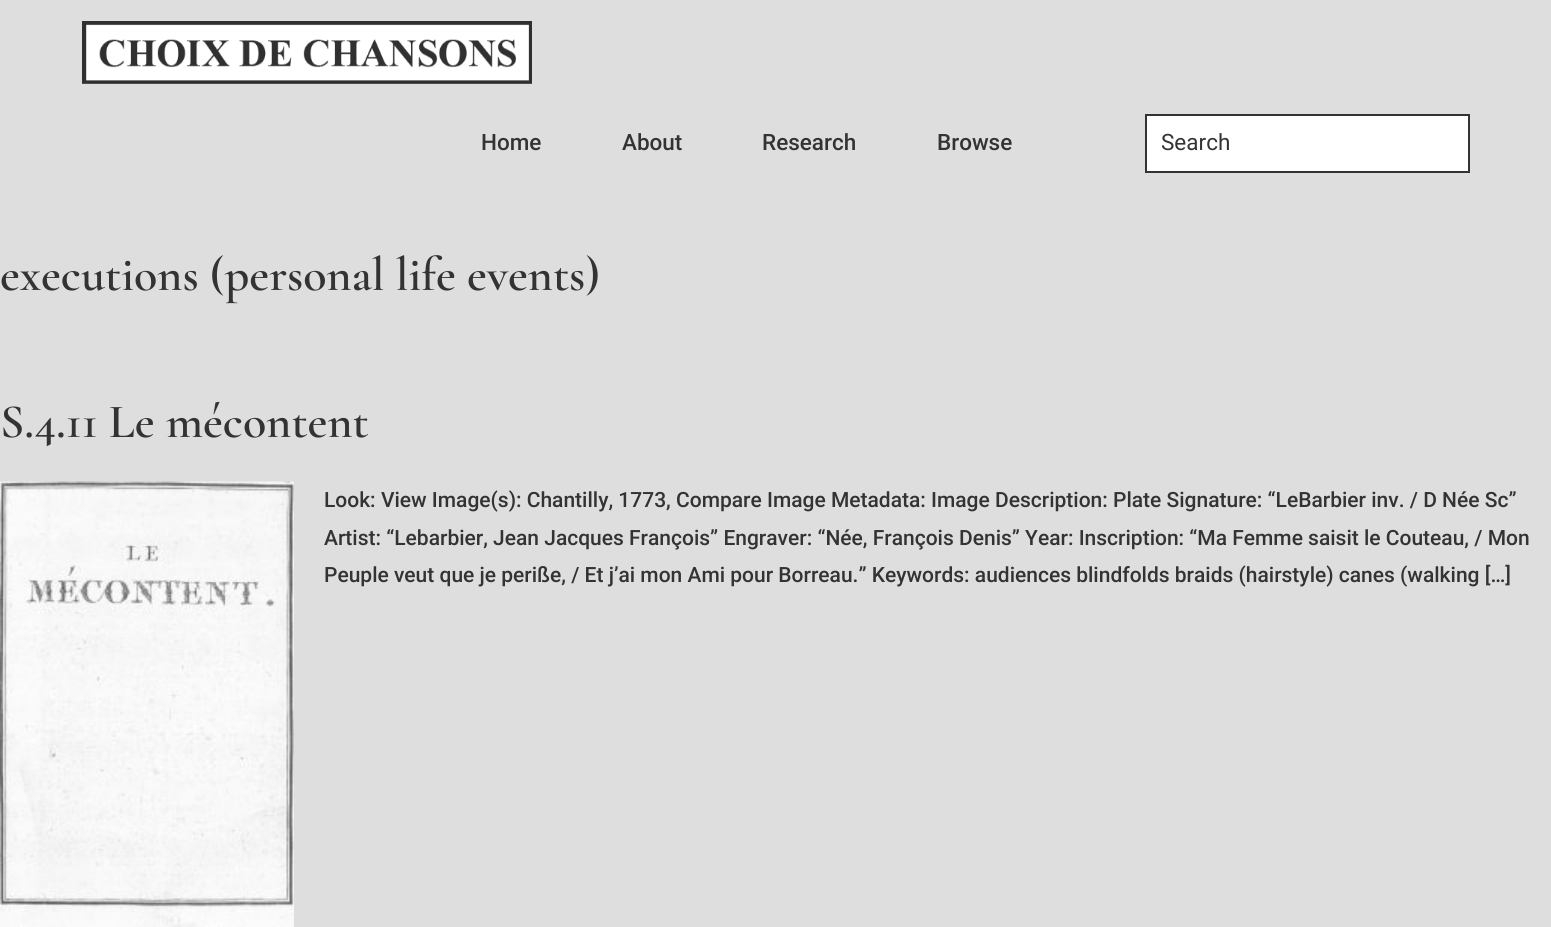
import math
import cairocffi as cairo

surface = cairo.ImageSurface(cairo.FORMAT_RGB24, 1551, 927)
ctx = cairo.Context(surface)
options = cairo.FontOptions()
options.set_hint_metrics(cairo.HINT_METRICS_OFF)
options.set_hint_style(cairo.HINT_STYLE_NONE)
ctx.set_font_options(options)
ctx.set_miter_limit(4)


def rgb(r, g, b):
    ctx.set_source_rgb(r / 255, g / 255, b / 255)


def face(family, size, italic, bold):
    ctx.select_font_face(family, cairo.FONT_SLANT_ITALIC if italic else cairo.FONT_SLANT_NORMAL, cairo.FONT_WEIGHT_BOLD if bold else cairo.FONT_WEIGHT_NORMAL)
    ctx.set_font_size(size)


def label(x, y, s):
    ctx.move_to(x, y)
    ctx.show_text(s)


def image(path, x, y, w, h):
    ctx.save()
    ctx.set_source_surface(cairo.ImageSurface.create_from_png(path), x, y)
    ctx.rectangle(x, y, w, h)
    ctx.fill()
    ctx.restore()


rgb(222, 222, 222)
ctx.paint()
image('image0.png', 82, 21, 450, 63)
face('Roboto Medium', 22.5, 0, 0)
rgb(51, 51, 51)
label(481, 150, 'Home')
label(622, 150, 'About')
label(762, 150, 'Research')
label(937, 150, 'Browse')
rgb(255, 255, 255)
ctx.rectangle(1146, 115, 323, 57)
ctx.fill_preserve()
rgb(51, 51, 51)
ctx.stroke()
face('Roboto', 22.5, 0, 0)
label(1161, 150, 'Search')
face('Cormorant Garamond SemiBold', 48, 0, 0)
label(0, 290, 'executions (personal life events)')
label(0, 437, 'S.4.11 Le mécontent')
image('image1.png', 0, 481, 294, 446)
face('Roboto Medium', 21, 0, 0)
label(324, 507, 'Look: View Image(s): Chantilly, 1773, Compare Image Metadata: Image Description: Plate Signature: “LeBarbier inv. / D Née Sc”')
label(324, 545, 'Artist: “Lebarbier, Jean Jacques François” Engraver: “Née, François Denis” Year: Inscription: “Ma Femme saisit le Couteau, / Mon')
label(324, 582, 'Peuple veut que je periße, / Et j’ai mon Ami pour Borreau.” Keywords: audiences blindfolds braids (hairstyle) canes (walking […]')
surface.write_to_png('render.png')
